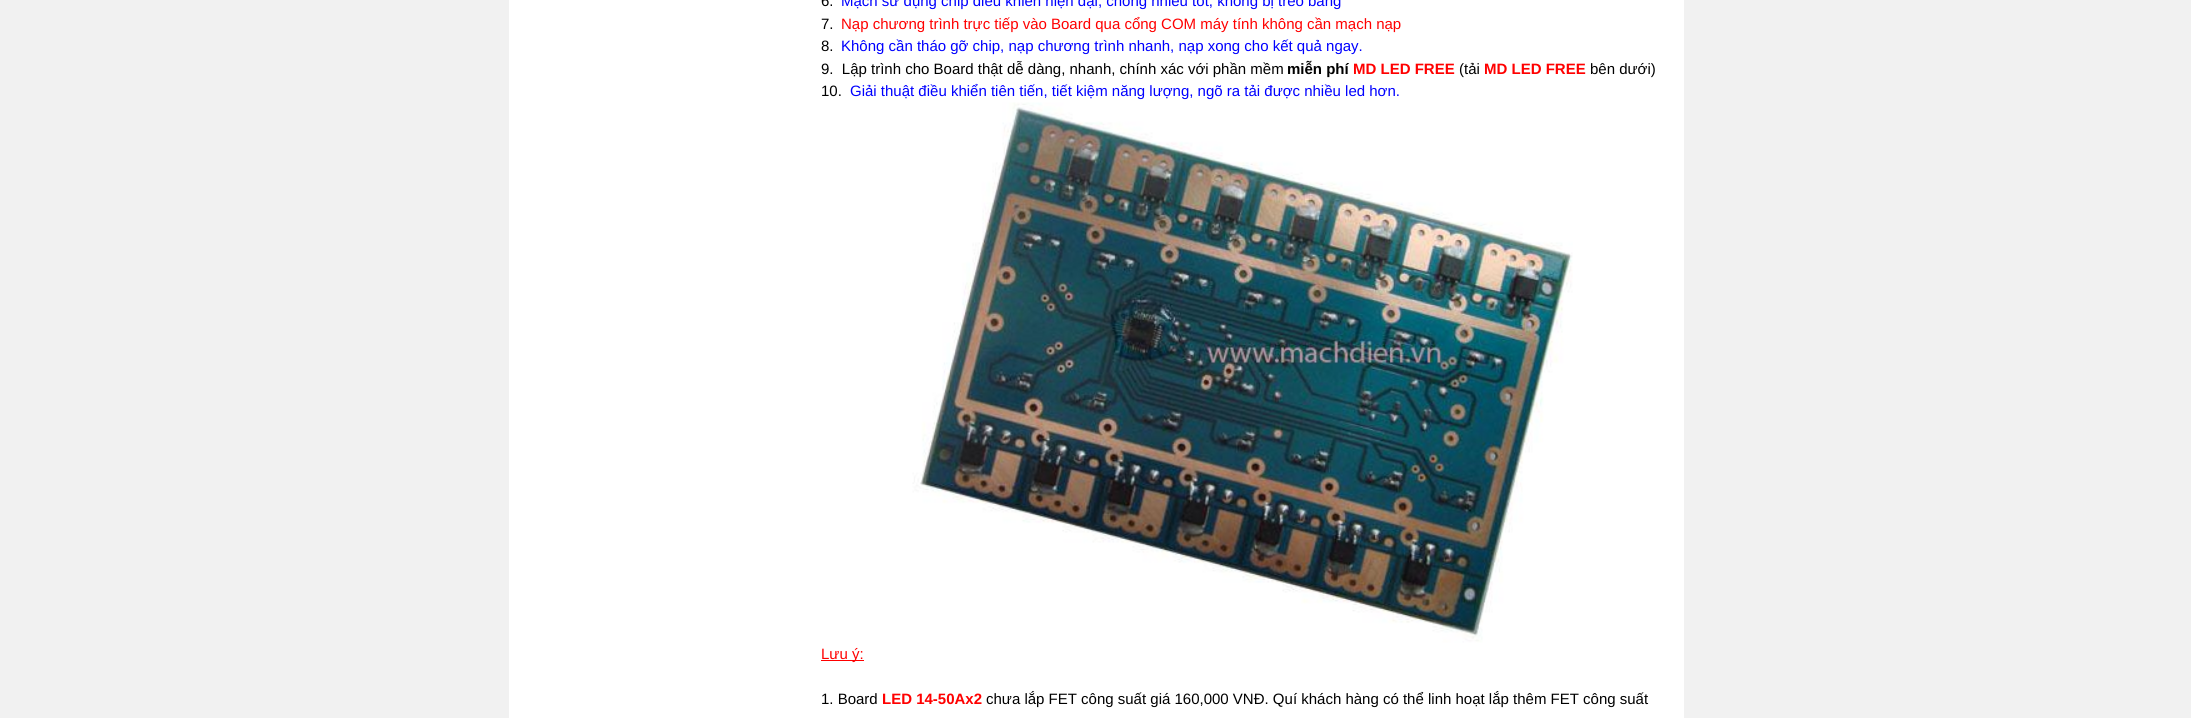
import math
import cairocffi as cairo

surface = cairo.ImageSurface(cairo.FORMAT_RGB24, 2191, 718)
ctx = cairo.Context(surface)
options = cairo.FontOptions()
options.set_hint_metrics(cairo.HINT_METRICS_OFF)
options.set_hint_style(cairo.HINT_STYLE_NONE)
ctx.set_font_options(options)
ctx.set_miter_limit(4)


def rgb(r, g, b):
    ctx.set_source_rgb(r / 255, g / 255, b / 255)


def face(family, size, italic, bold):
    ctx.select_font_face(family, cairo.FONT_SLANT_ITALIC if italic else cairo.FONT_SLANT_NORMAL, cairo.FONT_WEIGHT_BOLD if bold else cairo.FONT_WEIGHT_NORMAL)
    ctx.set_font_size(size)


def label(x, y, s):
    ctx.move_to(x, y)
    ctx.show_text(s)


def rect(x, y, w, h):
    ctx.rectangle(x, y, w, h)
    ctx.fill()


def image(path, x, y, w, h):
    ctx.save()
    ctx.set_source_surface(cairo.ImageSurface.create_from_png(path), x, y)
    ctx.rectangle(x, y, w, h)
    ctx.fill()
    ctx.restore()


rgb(241, 241, 241)
ctx.paint()
rgb(255, 255, 255)
rect(509, 0, 1175, 718)
face('Liberation Sans', 15, 0, 0)
rgb(0, 0, 0)
label(821, 6, '6.')
rgb(0, 0, 255)
label(841, 6, 'Mạch sử dụng chip điều khiển hiện đại, chống nhiễu tốt, không bị treo bảng')
rgb(0, 0, 0)
label(821, 29, '7.')
rgb(255, 0, 0)
label(841, 29, 'Nạp chương trình trực tiếp vào Board qua cổng COM máy tính không cần mạch nạp')
rgb(0, 0, 0)
label(821, 51, '8.')
rgb(0, 0, 255)
label(841, 51, 'Không cần tháo gỡ chip, nạp chương trình nhanh, nạp xong cho kết quả ngay.')
rgb(0, 0, 0)
label(821, 74, '9.  Lập trình cho Board thật dễ dàng, nhanh, chính xác với phần mềm')
face('Liberation Sans', 15, 0, 1)
label(1287, 74, 'miễn phí')
rgb(255, 0, 0)
label(1353, 74, 'MD LED FREE')
face('Liberation Sans', 15, 0, 0)
rgb(0, 0, 0)
label(1459, 74, '(tải')
face('Liberation Sans', 15, 0, 1)
rgb(255, 0, 0)
label(1484, 74, 'MD LED FREE')
face('Liberation Sans', 15, 0, 0)
rgb(0, 0, 0)
label(1590, 74, 'bên dưới)')
label(821, 96, '10.')
rgb(0, 0, 255)
label(850, 96, 'Giải thuật điều khiển tiên tiến, tiết kiệm năng lượng, ngõ ra tải được nhiều led hơn.')
image('image0.png', 912, 102, 661, 541)
rgb(255, 0, 0)
rect(821, 660, 43, 1)
label(821, 659, 'Lưu ý:')
rgb(0, 0, 0)
label(821, 704, '1. Board')
face('Liberation Sans', 15, 0, 1)
rgb(255, 0, 0)
label(882, 704, 'LED 14-50Ax2')
face('Liberation Sans', 15, 0, 0)
rgb(0, 0, 0)
label(986, 704, 'chưa lắp FET công suất giá 160,000 VNĐ. Quí khách hàng có thể linh hoạt lắp thêm FET công suất')
surface.write_to_png('render.png')
